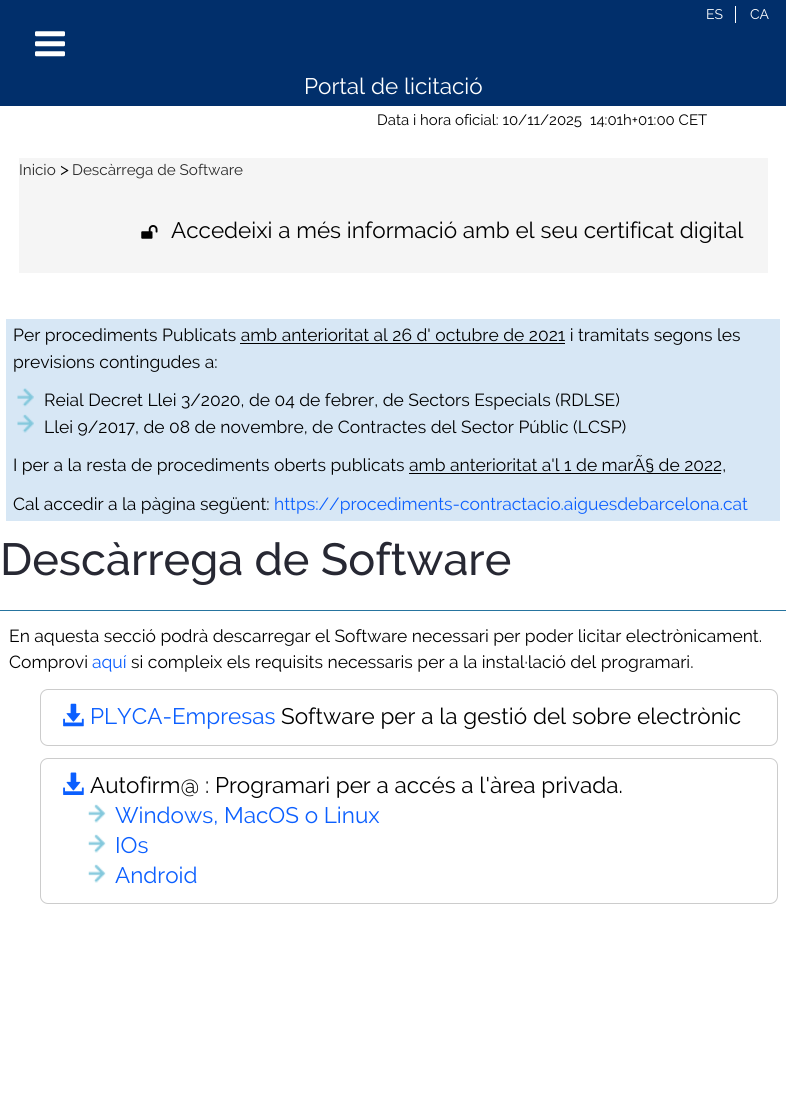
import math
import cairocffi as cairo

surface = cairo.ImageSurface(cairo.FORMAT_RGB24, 786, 1111)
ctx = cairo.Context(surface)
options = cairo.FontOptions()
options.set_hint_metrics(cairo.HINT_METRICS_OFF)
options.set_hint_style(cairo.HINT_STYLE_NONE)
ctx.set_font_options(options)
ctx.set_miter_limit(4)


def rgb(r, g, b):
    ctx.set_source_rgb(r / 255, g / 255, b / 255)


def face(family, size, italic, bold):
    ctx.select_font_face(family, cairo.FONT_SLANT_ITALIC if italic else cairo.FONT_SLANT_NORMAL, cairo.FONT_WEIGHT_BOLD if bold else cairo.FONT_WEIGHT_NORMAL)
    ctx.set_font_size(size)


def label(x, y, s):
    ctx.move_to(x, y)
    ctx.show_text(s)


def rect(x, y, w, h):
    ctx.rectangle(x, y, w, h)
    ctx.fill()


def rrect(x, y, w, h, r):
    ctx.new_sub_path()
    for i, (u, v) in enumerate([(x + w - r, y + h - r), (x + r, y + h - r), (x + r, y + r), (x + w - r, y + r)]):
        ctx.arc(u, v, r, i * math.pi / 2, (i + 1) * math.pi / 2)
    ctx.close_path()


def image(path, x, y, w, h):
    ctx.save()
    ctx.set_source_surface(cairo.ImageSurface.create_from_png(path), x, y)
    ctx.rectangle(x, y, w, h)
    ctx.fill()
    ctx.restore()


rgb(255, 255, 255)
ctx.paint()
rgb(1, 47, 107)
rect(0, 0, 786, 106)
face('Raleway', 14, 0, 0)
rgb(255, 255, 255)
label(706, 19, 'ES')
rect(735, 6, 1, 17)
label(750, 19, 'CA')
rgb(245, 245, 245)
rect(19, 158, 749, 115)
face('Raleway', 15.25, 0, 0)
rgb(41, 41, 41)
label(19, 175, 'Inicio')
face('Raleway', 17.5, 0, 0)
rgb(0, 0, 0)
label(60, 175, '>')
face('Raleway', 15.25, 0, 0)
rgb(41, 41, 41)
label(72, 175, 'Descàrrega de Software')
rgb(38, 116, 159)
rect(0, 610, 786, 1)
face('Raleway Medium', 45, 0, 0)
rgb(39, 40, 51)
label(0, 575, 'Descàrrega de Software')
face('Raleway', 17.5, 0, 0)
rgb(0, 0, 0)
label(9, 642, 'En aquesta secció podrà descarregar el Software necessari per poder licitar electrònicament.')
label(9, 668, 'Comprovi')
rgb(11, 95, 255)
label(92, 668, 'aquí')
rgb(0, 0, 0)
label(131, 668, 'si compleix els requisits necessaris per a la instal·lació del programari.')
rrect(40.5, 689.5, 737, 56, 7.5)
rgb(204, 204, 204)
ctx.set_line_width(1)
ctx.stroke()
image('image0.png', 63, 703, 21, 24)
face('Raleway', 22.5, 0, 0)
rgb(11, 95, 255)
label(90, 724, 'PLYCA-Empresas')
rgb(0, 0, 0)
label(281, 724, 'Software per a la gestió del sobre electrònic')
rrect(40.5, 758.5, 737, 145, 7.5)
rgb(204, 204, 204)
ctx.stroke()
image('image1.png', 63, 772, 21, 23)
rgb(0, 0, 0)
label(90, 793, 'Autofirm@ : Programari per a accés a l\'àrea privada.')
image('image2.png', 88, 804, 18, 19)
rgb(11, 95, 255)
label(115, 823, 'Windows, MacOS o Linux')
image('image2.png', 88, 834, 18, 19)
label(115, 853, 'IOs')
image('image2.png', 88, 864, 18, 19)
label(115, 883, 'Android')
image('image3.png', 35, 31, 30, 26)
image('image4.png', 141, 225, 17, 14)
rgb(0, 0, 0)
label(171, 238, 'Accedeixi a més informació amb el seu certificat digital')
rgb(255, 255, 255)
label(304, 94, 'Portal de licitació')
face('Raleway', 15, 0, 0)
rgb(0, 0, 0)
label(377, 125, 'Data i hora oficial: 10/11/2025')
label(590, 125, '14:01h+01:00 CET')
rgb(215, 231, 245)
rect(6, 319, 774, 202)
face('Raleway', 17.5, 0, 0)
rgb(0, 0, 0)
label(13, 341, 'Per procediments Publicats amb anterioritat al 26 d\' octubre de 2021 i tramitats segons les')
rect(240, 343, 325, 1)
label(13, 368, 'previsions contingudes a:')
image('image5.png', 17, 388, 17, 19)
label(44, 406, 'Reial Decret Llei 3/2020, de 04 de febrer, de Sectors Especials (RDLSE)')
image('image6.png', 17, 414, 17, 19)
label(44, 433, 'Llei 9/2017, de 08 de novembre, de Contractes del Sector Públic (LCSP)')
label(13, 471, 'I per a la resta de procediments oberts publicats amb anterioritat a\'l 1 de marÃ§ de 2022,')
rect(409, 473, 312, 1)
label(13, 510, 'Cal accedir a la pàgina següent:')
rgb(11, 95, 255)
label(274, 510, 'https://procediments-contractacio.aiguesdebarcelona.cat')
surface.write_to_png('render.png')
